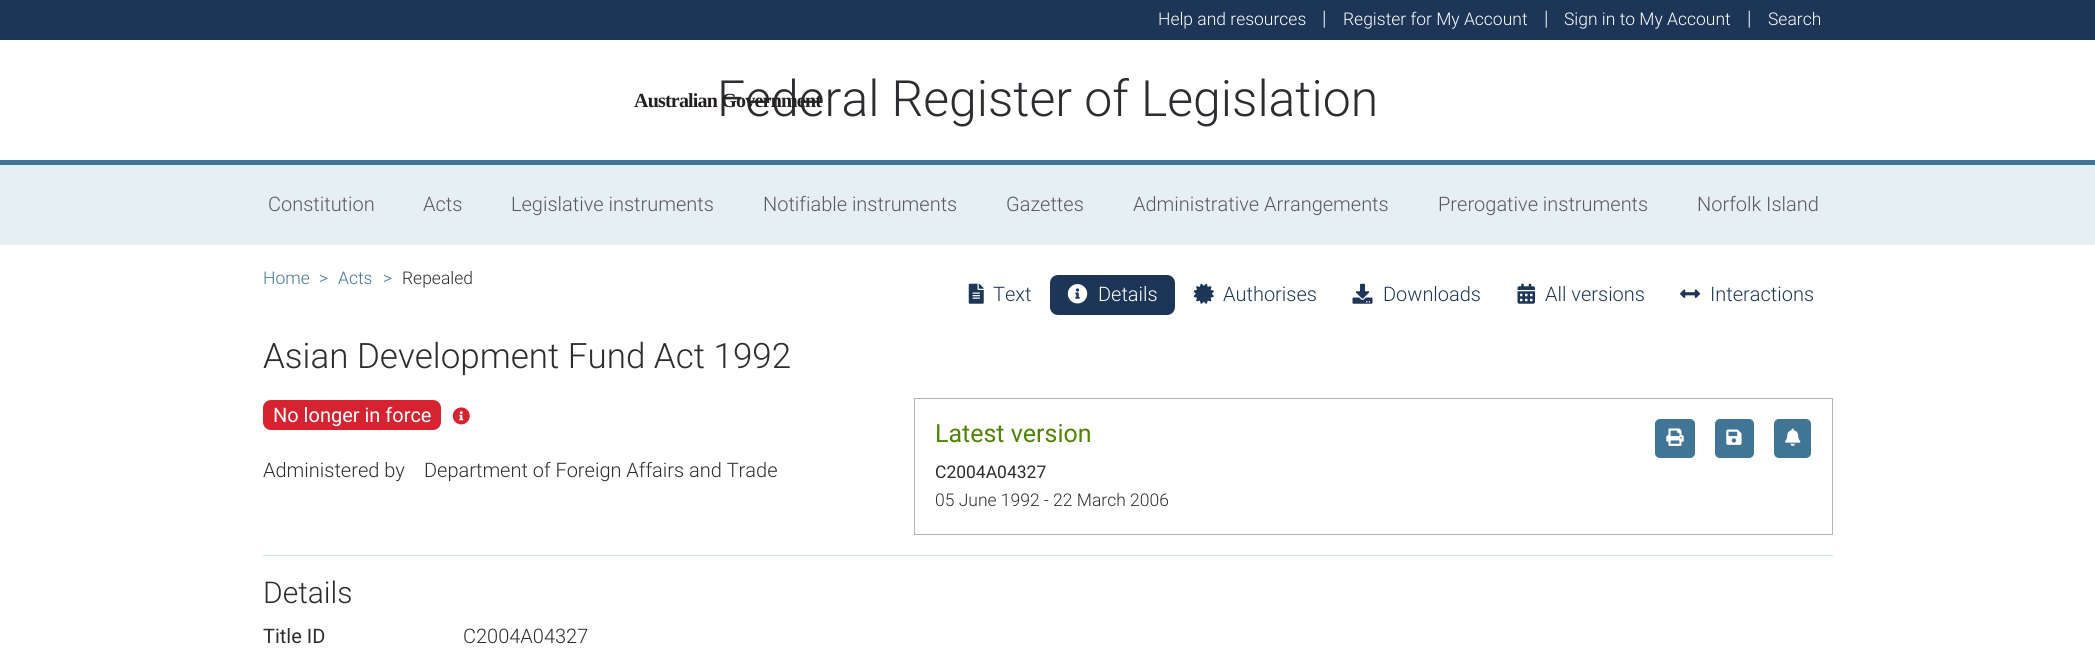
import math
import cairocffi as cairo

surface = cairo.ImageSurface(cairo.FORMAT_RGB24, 2095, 657)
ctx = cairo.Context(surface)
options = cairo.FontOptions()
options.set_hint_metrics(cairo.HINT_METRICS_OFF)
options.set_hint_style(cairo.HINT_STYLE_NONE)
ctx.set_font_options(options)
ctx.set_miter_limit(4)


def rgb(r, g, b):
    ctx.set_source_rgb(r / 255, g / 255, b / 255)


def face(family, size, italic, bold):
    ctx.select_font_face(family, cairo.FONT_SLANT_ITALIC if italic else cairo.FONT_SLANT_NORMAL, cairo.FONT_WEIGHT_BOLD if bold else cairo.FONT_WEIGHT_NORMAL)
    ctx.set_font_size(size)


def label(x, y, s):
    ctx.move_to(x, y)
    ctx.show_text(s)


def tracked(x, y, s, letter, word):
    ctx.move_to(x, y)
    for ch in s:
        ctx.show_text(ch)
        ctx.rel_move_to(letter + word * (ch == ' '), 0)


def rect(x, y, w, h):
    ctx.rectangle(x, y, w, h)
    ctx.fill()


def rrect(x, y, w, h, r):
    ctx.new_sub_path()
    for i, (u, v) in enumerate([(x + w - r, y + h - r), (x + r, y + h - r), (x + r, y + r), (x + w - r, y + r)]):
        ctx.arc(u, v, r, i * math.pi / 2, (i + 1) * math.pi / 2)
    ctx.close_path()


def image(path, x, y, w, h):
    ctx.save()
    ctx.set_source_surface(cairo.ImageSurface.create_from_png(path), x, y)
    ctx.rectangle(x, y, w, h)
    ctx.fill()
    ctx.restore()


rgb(255, 255, 255)
ctx.paint()
rgb(65, 117, 149)
rect(0, 160, 2095, 5)
rgb(29, 53, 87)
rect(0, 0, 2095, 40)
face('Roboto Light', 17.5, 0, 0)
rgb(255, 255, 255)
label(1158, 25, 'Help and resources')
face('Roboto Light', 20, 0, 0)
label(1322, 25, '|')
face('Roboto Light', 17.5, 0, 0)
label(1343, 25, 'Register for My Account')
face('Roboto Light', 20, 0, 0)
label(1544, 25, '|')
face('Roboto Light', 17.5, 0, 0)
label(1564, 25, 'Sign in to My Account')
face('Roboto Light', 20, 0, 0)
label(1747, 25, '|')
face('Roboto Light', 17.5, 0, 0)
label(1768, 25, 'Search')
face('Roboto Light', 50, 0, 0)
rgb(45, 45, 49)
label(717, 116, 'Federal Register of Legislation')
face('Liberation Serif', 20, 0, 1)
rgb(35, 32, 31)
tracked(634, 107, 'Australian Government', -0.8, 0)
rgb(230, 239, 244)
rect(0, 165, 2095, 80)
face('Roboto Light', 20, 0, 0)
rgb(86, 89, 94)
label(268, 211, 'Constitution')
label(423, 211, 'Acts')
label(511, 211, 'Legislative instruments')
label(763, 211, 'Notifiable instruments')
label(1006, 211, 'Gazettes')
label(1133, 211, 'Administrative Arrangements')
label(1438, 211, 'Prerogative instruments')
label(1697, 211, 'Norfolk Island')
face('Roboto Light', 17.5, 0, 0)
rgb(65, 117, 149)
label(263, 284, 'Home')
label(319, 284, '>')
label(338, 284, 'Acts')
label(383, 284, '>')
rgb(45, 45, 49)
label(402, 284, 'Repealed')
image('image0.png', 968, 283, 16, 21)
face('Roboto Light', 20, 0, 0)
rgb(29, 53, 87)
label(993, 301, 'Text')
rrect(1050, 275, 125, 40, 8)
ctx.fill()
image('image1.png', 1067, 284, 21, 20)
rgb(255, 255, 255)
label(1098, 301, 'Details')
image('image2.png', 1193, 283, 21, 21)
rgb(29, 53, 87)
label(1223, 301, 'Authorises')
image('image3.png', 1352, 283, 21, 21)
label(1383, 301, 'Downloads')
image('image4.png', 1517, 283, 18, 21)
label(1545, 301, 'All versions')
image('image5.png', 1680, 289, 20, 9)
label(1710, 301, 'Interactions')
face('Roboto Light', 35, 0, 0)
rgb(45, 45, 49)
label(263, 368, 'Asian Development Fund Act 1992')
rgb(214, 35, 50)
rrect(263, 400, 178, 30, 8)
ctx.fill()
face('Roboto', 20, 0, 0)
rgb(255, 255, 255)
label(273, 422, 'No longer in force')
image('image6.png', 452, 407, 18, 18)
face('Roboto Light', 20, 0, 0)
rgb(45, 45, 49)
label(263, 477, 'Administered by')
label(424, 477, 'Department of Foreign Affairs and Trade')
ctx.rectangle(914.5, 398.5, 918, 136)
rgb(181, 181, 182)
ctx.set_line_width(1)
ctx.stroke()
face('Roboto', 25, 0, 0)
rgb(81, 131, 2)
label(935, 442, 'Latest version')
rgb(65, 117, 149)
rrect(1655.5, 419.5, 39, 38, 4.5)
ctx.fill_preserve()
ctx.stroke()
image('image7.png', 1666, 428, 18, 18)
rrect(1715.5, 419.5, 38, 38, 4.5)
ctx.fill_preserve()
ctx.stroke()
image('image8.png', 1726, 429, 16, 16)
rrect(1774.5, 419.5, 36, 38, 4.5)
ctx.fill_preserve()
ctx.stroke()
image('image9.png', 1785, 428, 16, 18)
face('Roboto', 17.5, 0, 0)
rgb(45, 45, 49)
label(935, 478, 'C2004A04327')
face('Roboto Light', 17.5, 0, 0)
label(935, 506, '05 June 1992 - 22 March 2006')
rgb(208, 221, 229)
rect(263, 555, 1570, 1)
face('Roboto Light', 30, 0, 0)
rgb(45, 45, 49)
label(263, 603, 'Details')
face('Roboto', 20, 0, 0)
label(263, 643, 'Title ID')
face('Roboto Light', 20, 0, 0)
label(463, 643, 'C2004A04327')
surface.write_to_png('render.png')
